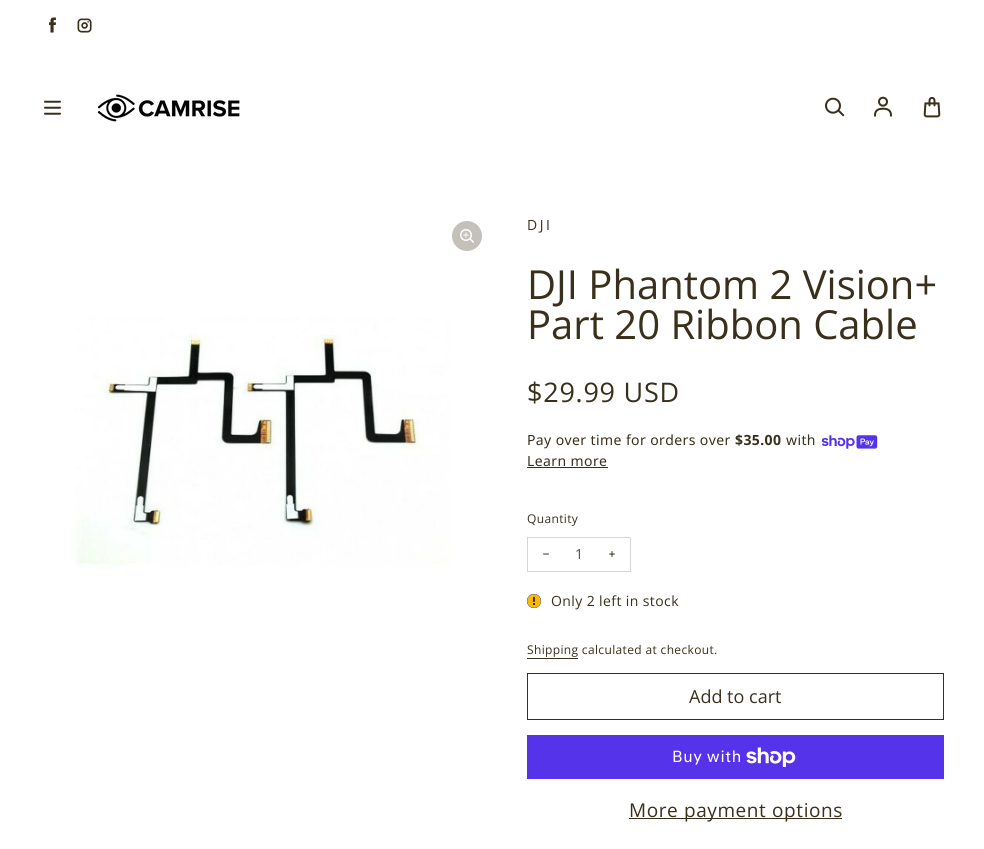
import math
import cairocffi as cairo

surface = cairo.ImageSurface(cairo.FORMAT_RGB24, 984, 849)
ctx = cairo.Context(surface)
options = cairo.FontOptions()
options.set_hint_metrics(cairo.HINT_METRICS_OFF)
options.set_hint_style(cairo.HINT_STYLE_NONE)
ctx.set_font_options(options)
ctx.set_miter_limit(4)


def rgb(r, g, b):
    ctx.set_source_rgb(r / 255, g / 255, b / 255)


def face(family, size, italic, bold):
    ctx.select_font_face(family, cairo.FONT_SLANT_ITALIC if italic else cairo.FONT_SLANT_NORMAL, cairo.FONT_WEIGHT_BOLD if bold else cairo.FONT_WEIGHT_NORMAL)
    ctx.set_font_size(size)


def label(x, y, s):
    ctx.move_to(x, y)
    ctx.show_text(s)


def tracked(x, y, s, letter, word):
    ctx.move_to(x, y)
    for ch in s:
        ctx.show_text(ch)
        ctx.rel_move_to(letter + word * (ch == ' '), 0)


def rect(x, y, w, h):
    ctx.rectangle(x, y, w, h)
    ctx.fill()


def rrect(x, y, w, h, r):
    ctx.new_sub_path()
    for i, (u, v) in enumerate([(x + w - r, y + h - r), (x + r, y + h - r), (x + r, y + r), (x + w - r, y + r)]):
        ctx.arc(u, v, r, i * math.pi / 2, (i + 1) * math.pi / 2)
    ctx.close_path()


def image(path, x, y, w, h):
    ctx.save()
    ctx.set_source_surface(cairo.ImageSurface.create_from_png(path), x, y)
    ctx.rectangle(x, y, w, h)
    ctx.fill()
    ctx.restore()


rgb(255, 255, 255)
ctx.paint()
image('image0.png', 49, 17, 7, 16)
image('image1.png', 77, 18, 15, 15)
image('image2.png', 44, 100, 17, 15)
image('image3.png', 97, 94, 143, 28)
image('image4.png', 825, 97, 20, 20)
image('image5.png', 874, 96, 18, 21)
image('image6.png', 923, 96, 18, 22)
rgb(248, 247, 247)
rrect(40, 216, 447, 447, 20)
ctx.fill()
image('image7.png', 40, 216, 447, 447)
rgb(196, 193, 187)
ctx.arc(467, 236, 15, 0, 2 * math.pi)
ctx.fill()
image('image8.png', 460, 229, 14, 14)
face('Open Sans', 14, 0, 0)
rgb(57, 48, 28)
tracked(527, 230, 'DJI', 2.5, 0)
face('Open Sans', 40, 0, 0)
label(527, 299, 'DJI Phantom 2 Vision+')
label(527, 339, 'Part 20 Ribbon Cable')
face('Open Sans', 27, 0, 0)
tracked(527, 402, '$29.99 USD', 0.75, 0)
face('Noto Sans', 14, 0, 0)
tracked(527, 445, 'Pay over time for orders over', 0.4, 0)
face('Noto Sans', 14, 0, 1)
tracked(735, 445, '$35.00', 0.4, 0)
face('Noto Sans', 14, 0, 0)
tracked(786, 445, 'with', 0.4, 0)
image('image9.png', 821, 435, 57, 14)
tracked(527, 466, 'Learn more', 0.4, 0)
rect(527, 467, 81, 1)
face('Open Sans', 12, 0, 0)
tracked(527, 523, 'Quantity', 0.35, 0)
image('image10.png', 543, 553, 6, 2)
image('image11.png', 609, 551, 6, 6)
ctx.rectangle(527.5, 537.5, 103, 34)
rgb(215, 214, 210)
ctx.set_line_width(1)
ctx.stroke()
face('Open Sans', 14, 0, 0)
rgb(87, 79, 62)
label(575, 559, '1')
image('image12.png', 527, 594, 14, 14)
rgb(57, 48, 28)
tracked(551, 606, 'Only 2 left in stock', 0.4, 0)
face('Open Sans', 12, 0, 0)
tracked(527, 654, 'Shipping calculated at checkout.', 0.35, 0)
rect(527, 658, 51, 1)
ctx.rectangle(527.5, 673.5, 416, 46)
ctx.stroke()
face('Open Sans', 18, 0, 0)
label(689, 703, 'Add to cart')
rgb(84, 51, 235)
rect(527, 735, 417, 44)
face('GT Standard', 16, 0, 0)
rgb(255, 255, 255)
tracked(672, 762, 'Buy with', 0.6, 0)
image('image13.png', 746, 747, 50, 20)
rgb(57, 48, 28)
rect(629, 818, 213, 1)
face('Open Sans', 19, 0, 0)
tracked(629, 817, 'More payment options', 0.6, 0)
surface.write_to_png('render.png')
